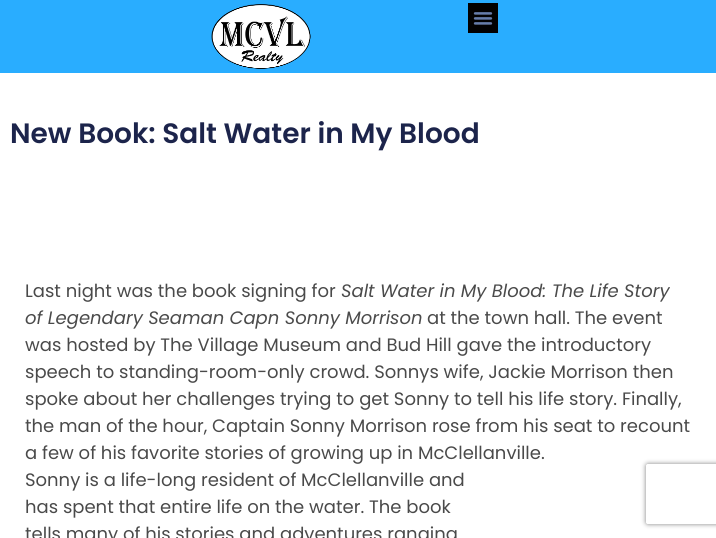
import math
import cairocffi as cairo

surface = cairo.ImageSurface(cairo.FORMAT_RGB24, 716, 538)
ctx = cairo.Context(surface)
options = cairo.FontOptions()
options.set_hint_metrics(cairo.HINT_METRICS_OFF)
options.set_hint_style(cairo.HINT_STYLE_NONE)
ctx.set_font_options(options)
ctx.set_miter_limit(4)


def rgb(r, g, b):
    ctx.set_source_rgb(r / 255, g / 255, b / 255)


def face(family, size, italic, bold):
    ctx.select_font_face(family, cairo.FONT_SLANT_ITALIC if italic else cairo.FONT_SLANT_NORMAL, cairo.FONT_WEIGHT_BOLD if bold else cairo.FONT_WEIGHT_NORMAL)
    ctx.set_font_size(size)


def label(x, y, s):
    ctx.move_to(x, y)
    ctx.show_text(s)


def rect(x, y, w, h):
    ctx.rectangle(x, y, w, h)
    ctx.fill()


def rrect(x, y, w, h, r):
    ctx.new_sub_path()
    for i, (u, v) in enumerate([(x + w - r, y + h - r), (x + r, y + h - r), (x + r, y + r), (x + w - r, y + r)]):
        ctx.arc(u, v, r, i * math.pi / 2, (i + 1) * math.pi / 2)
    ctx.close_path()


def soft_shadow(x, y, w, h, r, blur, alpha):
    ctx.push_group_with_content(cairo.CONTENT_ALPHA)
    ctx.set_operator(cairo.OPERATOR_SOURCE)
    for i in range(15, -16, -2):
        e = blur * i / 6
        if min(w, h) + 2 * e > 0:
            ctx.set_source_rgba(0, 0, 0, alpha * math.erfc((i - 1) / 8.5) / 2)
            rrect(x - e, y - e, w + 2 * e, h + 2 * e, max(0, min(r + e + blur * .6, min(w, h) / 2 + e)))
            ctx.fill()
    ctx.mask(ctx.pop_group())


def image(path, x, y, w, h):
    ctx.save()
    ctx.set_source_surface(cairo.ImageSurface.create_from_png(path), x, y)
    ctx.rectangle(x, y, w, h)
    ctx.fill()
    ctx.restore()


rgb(255, 255, 255)
ctx.paint()
rgb(41, 173, 255)
rect(0, 0, 716, 73)
image('image0.png', 211, 4, 100, 65)
rgb(2, 1, 2)
rect(468, 3, 30, 30)
image('image1.png', 473, 12, 20, 13)
face('Poppins SemiBold', 28, 0, 0)
rgb(28, 36, 75)
label(10, 143, 'New Book: Salt Water in My Blood')
face('Poppins', 18, 0, 0)
rgb(74, 74, 74)
label(25, 297, 'Last night was the book signing for')
face('Poppins', 18, 1, 0)
label(341, 297, 'Salt Water in My Blood: The Life Story')
label(25, 324, 'of Legendary Seaman Capn Sonny Morrison')
face('Poppins', 18, 0, 0)
label(427, 324, 'at the town hall. The event')
label(25, 351, 'was hosted by The Village Museum and Bud Hill gave the introductory')
label(25, 378, 'speech to standing-room-only crowd. Sonnys wife, Jackie Morrison then')
label(25, 405, 'spoke about her challenges trying to get Sonny to tell his life story. Finally,')
label(25, 432, 'the man of the hour, Captain Sonny Morrison rose from his seat to recount')
label(25, 459, 'a few of his favorite stories of growing up in McClellanville.')
label(25, 486, 'Sonny is a life-long resident of McClellanville and')
label(25, 513, 'has spent that entire life on the water. The book')
label(25, 540, 'tells many of his stories and adventures ranging')
ctx.save()
ctx.set_fill_rule(cairo.FILL_RULE_EVEN_ODD)
ctx.new_path()
ctx.move_to(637, 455)
ctx.line_to(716, 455)
ctx.line_to(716, 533)
ctx.line_to(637, 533)
ctx.close_path()
ctx.move_to(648, 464)
ctx.line_to(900, 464)
ctx.curve_to(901, 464, 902, 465, 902, 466)
ctx.line_to(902, 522)
ctx.curve_to(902, 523, 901, 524, 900, 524)
ctx.line_to(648, 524)
ctx.curve_to(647, 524, 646, 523, 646, 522)
ctx.line_to(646, 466)
ctx.curve_to(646, 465, 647, 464, 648, 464)
ctx.close_path()
ctx.clip()
rgb(128, 128, 128)
soft_shadow(646, 464, 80, 60, 2, 2.5, 1)
ctx.restore()
surface.write_to_png('render.png')
